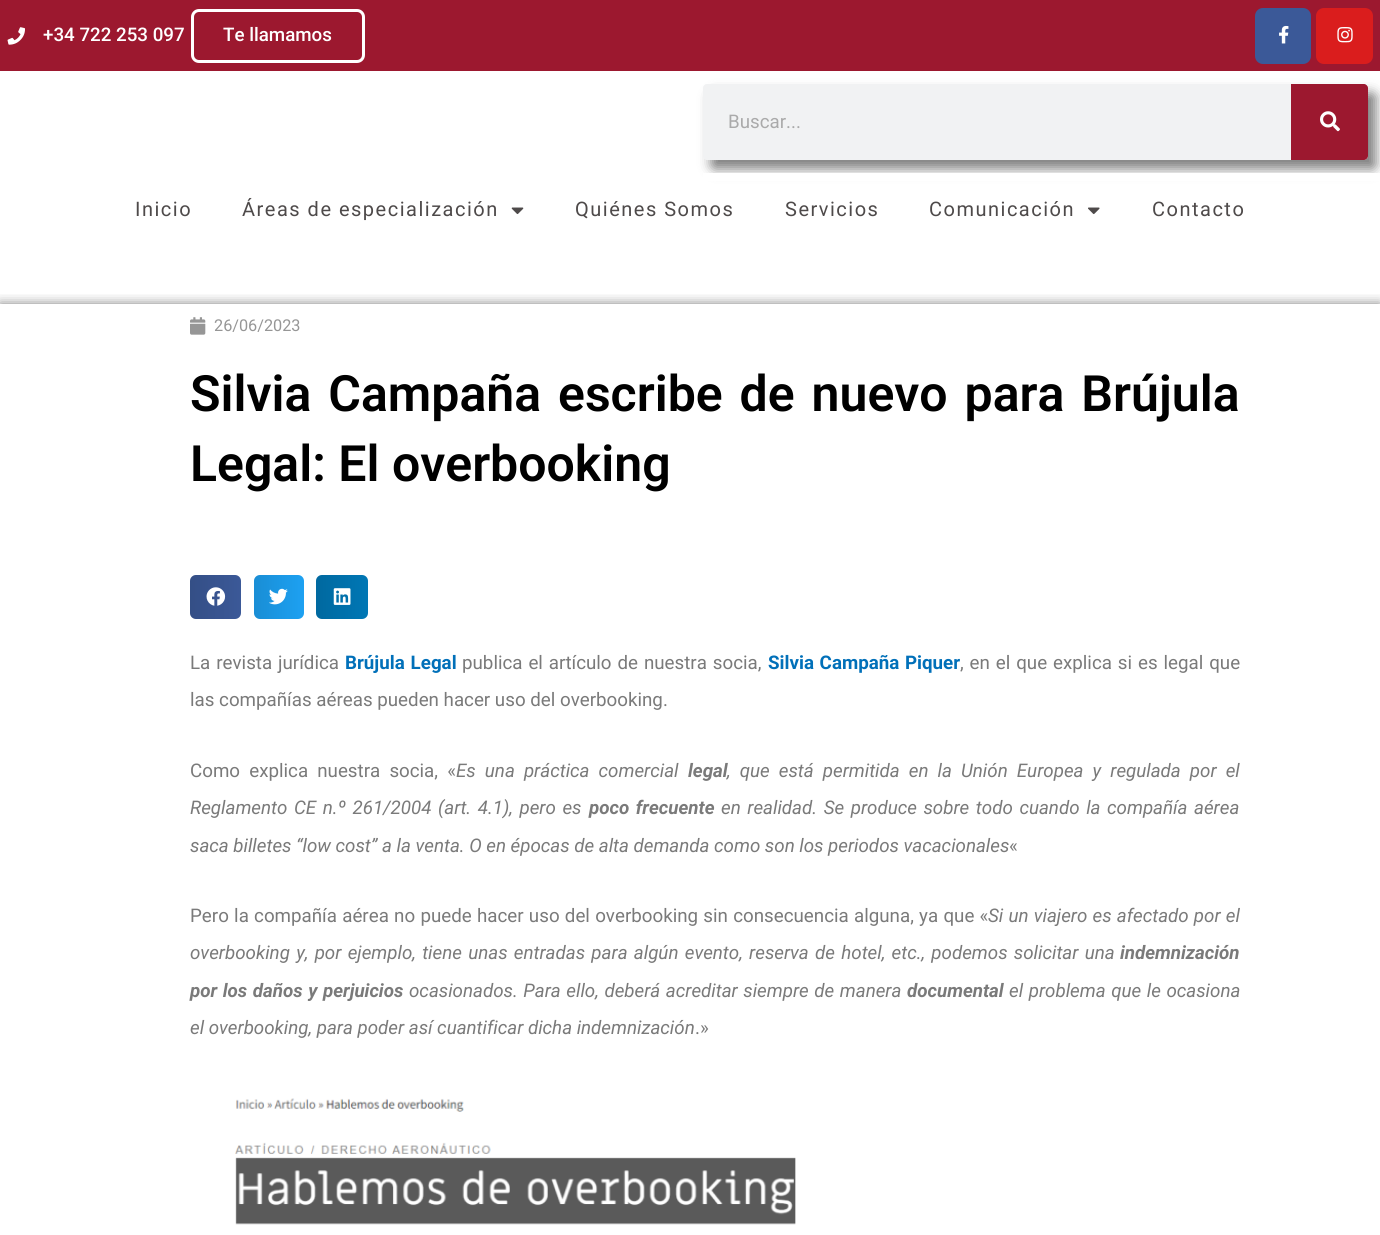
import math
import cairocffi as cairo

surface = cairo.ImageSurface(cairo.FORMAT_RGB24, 1380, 1235)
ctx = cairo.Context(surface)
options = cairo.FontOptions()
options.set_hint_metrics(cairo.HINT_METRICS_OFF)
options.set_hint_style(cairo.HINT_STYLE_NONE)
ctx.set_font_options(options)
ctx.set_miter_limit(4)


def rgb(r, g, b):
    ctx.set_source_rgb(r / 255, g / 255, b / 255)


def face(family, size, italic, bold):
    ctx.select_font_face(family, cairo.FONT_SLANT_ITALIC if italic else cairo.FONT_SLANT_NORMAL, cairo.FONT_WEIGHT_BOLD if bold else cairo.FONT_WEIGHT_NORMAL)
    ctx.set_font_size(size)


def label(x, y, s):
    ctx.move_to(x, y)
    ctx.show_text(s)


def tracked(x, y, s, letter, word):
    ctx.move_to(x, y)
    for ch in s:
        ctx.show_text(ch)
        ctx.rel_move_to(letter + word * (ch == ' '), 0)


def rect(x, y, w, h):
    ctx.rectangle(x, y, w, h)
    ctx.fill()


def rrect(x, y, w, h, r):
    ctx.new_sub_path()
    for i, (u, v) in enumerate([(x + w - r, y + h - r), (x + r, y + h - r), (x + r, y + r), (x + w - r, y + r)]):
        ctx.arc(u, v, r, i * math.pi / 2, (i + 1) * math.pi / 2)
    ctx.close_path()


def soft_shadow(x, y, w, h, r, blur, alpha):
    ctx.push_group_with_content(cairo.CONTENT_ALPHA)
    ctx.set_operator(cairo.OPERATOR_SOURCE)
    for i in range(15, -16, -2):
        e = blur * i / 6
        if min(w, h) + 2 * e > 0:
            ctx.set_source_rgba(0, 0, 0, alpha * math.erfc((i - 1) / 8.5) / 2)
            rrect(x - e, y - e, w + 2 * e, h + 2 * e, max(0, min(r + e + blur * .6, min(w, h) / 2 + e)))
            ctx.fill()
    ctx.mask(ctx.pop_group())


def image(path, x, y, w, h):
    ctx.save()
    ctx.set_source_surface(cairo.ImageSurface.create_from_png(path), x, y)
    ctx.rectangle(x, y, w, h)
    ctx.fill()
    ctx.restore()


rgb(255, 255, 255)
ctx.paint()
rgb(156, 24, 47)
rect(0, 0, 1380, 71)
image('image0.png', 7, 27, 18, 18)
face('Roboto Medium', 18.75, 0, 0)
rgb(255, 255, 255)
label(43, 41, '+34 722 253 097')
rrect(192.5, 10.5, 171, 51, 6.5)
ctx.set_line_width(3)
ctx.stroke()
label(223, 41, 'Te llamamos')
rgb(59, 89, 152)
rrect(1255, 8, 56, 56, 8)
ctx.fill()
image('image1.png', 1279, 25, 10, 19)
rgb(218, 29, 29)
rrect(1316, 8, 57, 56, 8)
ctx.fill()
image('image2.png', 1337, 27, 16, 16)
rgb(0, 0, 0)
soft_shadow(711, 93, 665, 76, 4, 6, 0.5)
rgb(241, 242, 243)
rrect(703, 84, 665, 76, 4)
ctx.fill()
face('Roboto', 18.75, 0, 0)
rgb(170, 170, 170)
label(728, 128, 'Buscar...')
rgb(156, 24, 47)
ctx.new_path()
ctx.move_to(1291, 84)
ctx.line_to(1364, 84)
ctx.curve_to(1366, 84, 1368, 86, 1368, 88)
ctx.line_to(1368, 156)
ctx.curve_to(1368, 158, 1366, 160, 1364, 160)
ctx.line_to(1291, 160)
ctx.close_path()
ctx.fill()
image('image3.png', 1320, 111, 20, 21)
rgb(255, 255, 255)
rect(703, 173, 677, 8)
face('Roboto', 20, 0, 0)
rgb(78, 74, 74)
tracked(135, 216, 'Inicio', 1.5, 0)
tracked(242, 216, 'Áreas de especialización', 1.5, 0)
image('image4.png', 511, 207, 13, 8)
tracked(575, 216, 'Quiénes Somos', 1.5, 0)
tracked(785, 216, 'Servicios', 1.5, 0)
tracked(929, 216, 'Comunicación', 1.5, 0)
image('image5.png', 1088, 207, 12, 8)
tracked(1152, 216, 'Contacto', 1.5, 0)
ctx.save()
ctx.rectangle(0, 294, 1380, 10)
ctx.clip()
rgb(0, 0, 0)
soft_shadow(0, 304, 1380, 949, 0, 6, 0.5)
ctx.restore()
image('image6.png', 190, 317, 16, 18)
face('Roboto', 16.25, 0, 0)
rgb(150, 150, 150)
label(214, 331, '26/06/2023')
face('Roboto SemiBold', 50, 0, 0)
rgb(0, 0, 0)
tracked(190, 411, 'Silvia Campaña escribe de nuevo para Brújula', 0, 4.5)
label(190, 481, 'Legal: El overbooking')
rgb(59, 89, 152)
rrect(190, 575, 51, 44, 6)
ctx.fill()
gradient = cairo.LinearGradient(190, 597, 241, 597)
gradient.add_color_stop_rgba(0, 0, 0, 0, 0.12)
gradient.add_color_stop_rgba(1, 0, 0, 0, 0)
ctx.set_source(gradient)
rrect(190, 575, 51, 44, 6)
ctx.fill()
image('image7.png', 206, 587, 20, 19)
rgb(29, 161, 242)
rrect(254, 575, 50, 44, 6)
ctx.fill()
gradient = cairo.LinearGradient(254, 597, 304, 597)
gradient.add_color_stop_rgba(0, 0, 0, 0, 0.12)
gradient.add_color_stop_rgba(1, 0, 0, 0, 0)
ctx.set_source(gradient)
rrect(254, 575, 50, 44, 6)
ctx.fill()
image('image8.png', 269, 588, 19, 17)
rgb(0, 119, 181)
rrect(316, 575, 52, 44, 6)
ctx.fill()
gradient = cairo.LinearGradient(316, 597, 368, 597)
gradient.add_color_stop_rgba(0, 0, 0, 0, 0.12)
gradient.add_color_stop_rgba(1, 0, 0, 0, 0)
ctx.set_source(gradient)
rrect(316, 575, 52, 44, 6)
ctx.fill()
image('image9.png', 333, 588, 18, 17)
face('Roboto', 18.75, 0, 0)
rgb(122, 122, 122)
tracked(190, 669, 'La revista jurídica', 0, 1.25)
face('Roboto', 18.75, 0, 1)
rgb(1, 112, 185)
tracked(345, 669, 'Brújula Legal', 0, 1.25)
face('Roboto', 18.75, 0, 0)
rgb(122, 122, 122)
tracked(462, 669, 'publica el artículo de nuestra socia,', 0, 1.25)
face('Roboto', 18.75, 0, 1)
rgb(1, 112, 185)
tracked(768, 669, 'Silvia Campaña Piquer', 0, 1)
face('Roboto', 18.75, 0, 0)
rgb(122, 122, 122)
tracked(960, 669, ', en el que explica si es legal que', 0, 1.25)
label(190, 706, 'las compañías aéreas pueden hacer uso del overbooking.')
tracked(190, 777, 'Como explica nuestra socia, «', 0, 4.5)
face('Roboto', 18.75, 1, 0)
tracked(456, 777, 'Es una práctica comercial', 0, 4.5)
face('Roboto', 18.75, 1, 1)
label(688, 777, 'legal')
face('Roboto', 18.75, 1, 0)
tracked(727, 777, ', que está permitida en la Unión Europea y regulada por el', 0, 4.5)
tracked(190, 814, 'Reglamento CE n.º 261/2004 (art. 4.1), pero es', 0, 2)
face('Roboto', 18.75, 1, 1)
tracked(589, 814, 'poco frecuente', 0, 2)
face('Roboto', 18.75, 1, 0)
tracked(721, 814, 'en realidad. Se produce sobre todo cuando la compañía aérea', 0, 2)
label(190, 852, 'saca billetes “low cost” a la venta. O en épocas de alta demanda como son los periodos vacacionales')
face('Roboto', 18.75, 0, 0)
label(1009, 852, '«')
tracked(190, 922, 'Pero la compañía aérea no puede hacer uso del overbooking sin consecuencia alguna, ya que «', 0, 0.6)
face('Roboto', 18.75, 1, 0)
tracked(988, 922, 'Si un viajero es afectado por el', 0, 0.6)
tracked(190, 959, 'overbooking y, por ejemplo, tiene unas entradas para algún evento, reserva de hotel, etc., podemos solicitar una', 0, 1.7)
face('Roboto', 18.75, 1, 1)
label(1120, 959, 'indemnización')
tracked(190, 997, 'por los daños y perjuicios', 0, 1)
face('Roboto', 18.75, 1, 0)
tracked(409, 997, 'ocasionados. Para ello, deberá acreditar siempre de manera', 0, 1)
face('Roboto', 18.75, 1, 1)
label(907, 997, 'documental')
face('Roboto', 18.75, 1, 0)
tracked(1009, 997, 'el problema que le ocasiona', 0, 1)
label(190, 1034, 'el overbooking, para poder así cuantificar dicha indemnización')
face('Roboto', 18.75, 0, 0)
label(695, 1034, '.»')
image('image10.png', 235, 1098, 561, 127)
surface.write_to_png('render.png')
